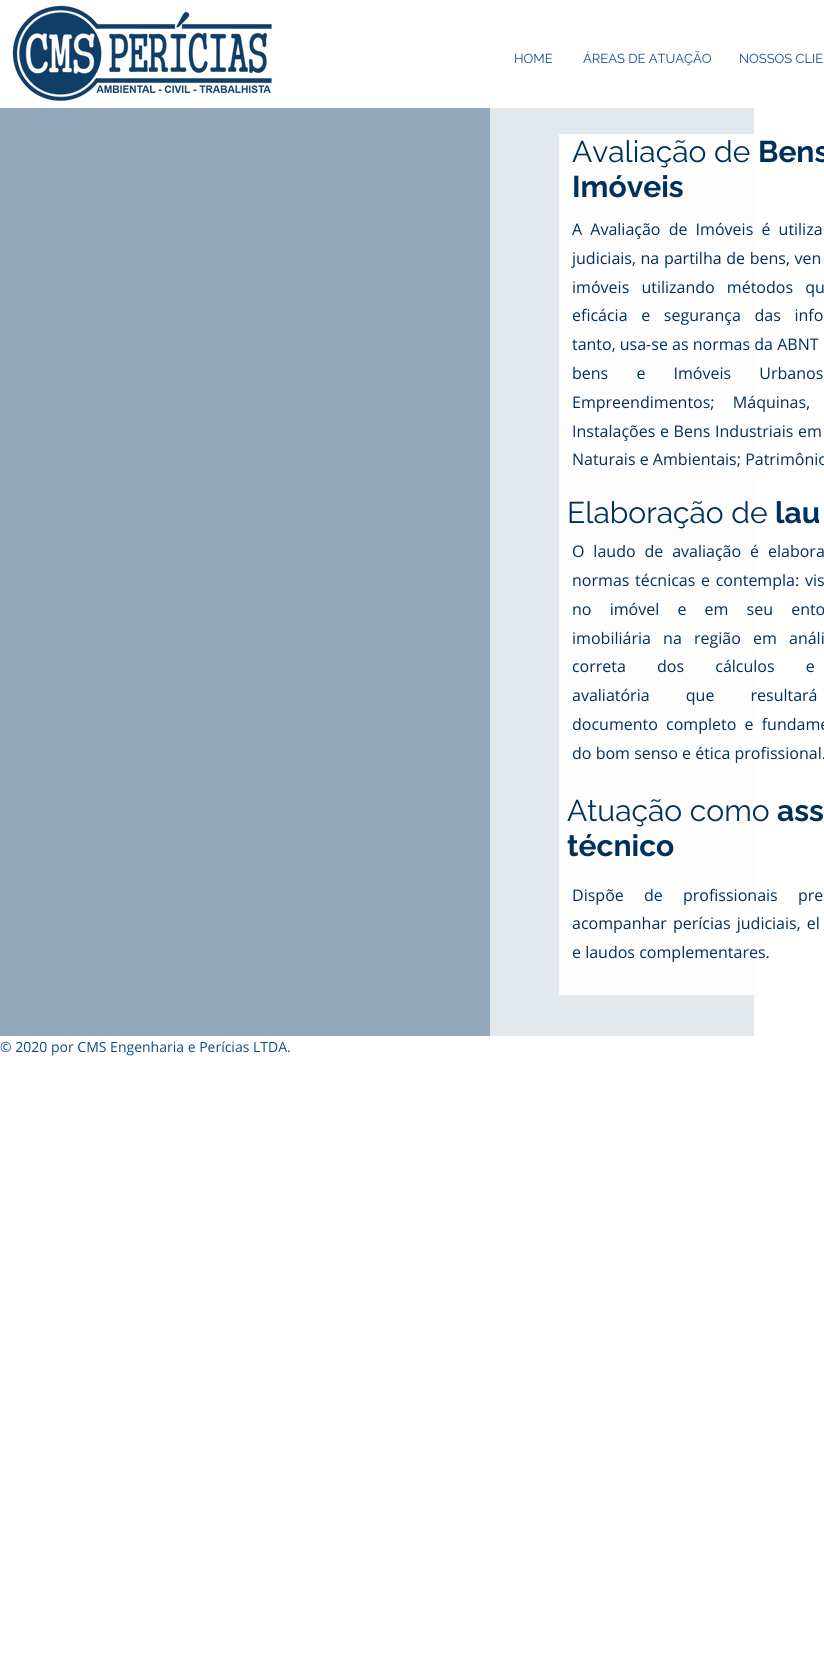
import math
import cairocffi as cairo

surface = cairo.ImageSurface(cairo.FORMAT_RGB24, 824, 1656)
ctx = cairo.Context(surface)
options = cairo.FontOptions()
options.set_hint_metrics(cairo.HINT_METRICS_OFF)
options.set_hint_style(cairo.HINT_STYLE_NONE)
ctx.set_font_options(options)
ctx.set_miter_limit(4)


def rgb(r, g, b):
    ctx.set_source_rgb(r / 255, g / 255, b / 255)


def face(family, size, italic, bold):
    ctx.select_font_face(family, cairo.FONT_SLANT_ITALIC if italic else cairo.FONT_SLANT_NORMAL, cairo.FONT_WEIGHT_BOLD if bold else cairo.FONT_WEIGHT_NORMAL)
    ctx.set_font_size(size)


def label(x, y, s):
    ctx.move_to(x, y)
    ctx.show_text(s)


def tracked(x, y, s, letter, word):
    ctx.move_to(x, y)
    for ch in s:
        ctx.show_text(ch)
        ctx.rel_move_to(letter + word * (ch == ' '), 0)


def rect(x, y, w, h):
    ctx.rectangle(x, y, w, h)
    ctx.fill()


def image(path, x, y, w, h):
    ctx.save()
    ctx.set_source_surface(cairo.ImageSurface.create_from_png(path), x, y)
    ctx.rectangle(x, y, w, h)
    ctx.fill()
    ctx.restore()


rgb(255, 255, 255)
ctx.paint()
image('image0.png', 12, 5, 260, 96)
face('Raleway', 13, 0, 0)
rgb(15, 76, 133)
label(514, 63, 'HOME')
label(583, 63, 'ÁREAS DE ATUAÇÃO')
label(739, 63, 'NOSSOS CLIE')
rgb(146, 167, 185)
rect(0, 108, 490, 928)
rgb(227, 232, 236)
rect(490, 108, 264, 928)
rgb(253, 253, 254)
rect(559, 134, 195, 861)
face('Raleway', 30, 0, 0)
rgb(0, 48, 91)
label(572, 162, 'Avaliação de')
face('Raleway', 30, 0, 1)
label(758, 162, 'Bens')
label(572, 197, 'Imóveis')
face('Open Sans', 16, 0, 0)
tracked(572, 235, 'A Avaliação de Imóveis é utiliza', 0, 4)
tracked(572, 264, 'judiciais, na partilha de bens, ven', 0, 0.5)
tracked(572, 293, 'imóveis utilizando métodos qu', 0, 8)
tracked(572, 321, 'eficácia e segurança das info', 0, 9.5)
label(572, 350, 'tanto, usa-se as normas da ABNT')
tracked(572, 379, 'bens e Imóveis Urbanos', 0, 24)
tracked(572, 408, 'Empreendimentos; Máquinas,', 0, 14)
tracked(572, 437, 'Instalações e Bens Industriais em', 0, 0.5)
label(572, 465, 'Naturais e Ambientais; Patrimônio')
face('Raleway', 30, 0, 0)
label(567, 523, 'Elaboração de')
face('Raleway', 30, 0, 1)
label(775, 523, 'lau')
face('Open Sans', 16, 0, 0)
tracked(572, 557, 'O laudo de avaliação é elabora', 0, 4.75)
tracked(572, 586, 'normas técnicas e contempla: vis', 0, 1.5)
tracked(572, 615, 'no imóvel e em seu ento', 0, 14)
tracked(572, 644, 'imobiliária na região em análi', 0, 8)
tracked(572, 672, 'correta dos cálculos e', 0, 27)
tracked(572, 701, 'avaliatória que resultará', 0, 32)
tracked(572, 730, 'documento completo e fundame', 0, 4)
label(572, 759, 'do bom senso e ética profissional.')
face('Raleway', 30, 0, 0)
label(567, 821, 'Atuação como')
face('Raleway', 30, 0, 1)
label(777, 821, 'ass')
label(567, 856, 'técnico')
face('Open Sans', 16, 0, 0)
tracked(572, 901, 'Dispõe de profissionais pre', 0, 16)
tracked(572, 929, 'acompanhar perícias judiciais, el', 0, 2)
label(572, 958, 'e laudos complementares.')
face('Open Sans', 14, 0, 0)
rgb(15, 76, 133)
label(0, 1052, '© 2020 por CMS Engenharia e Perícias LTDA.')
surface.write_to_png('render.png')
